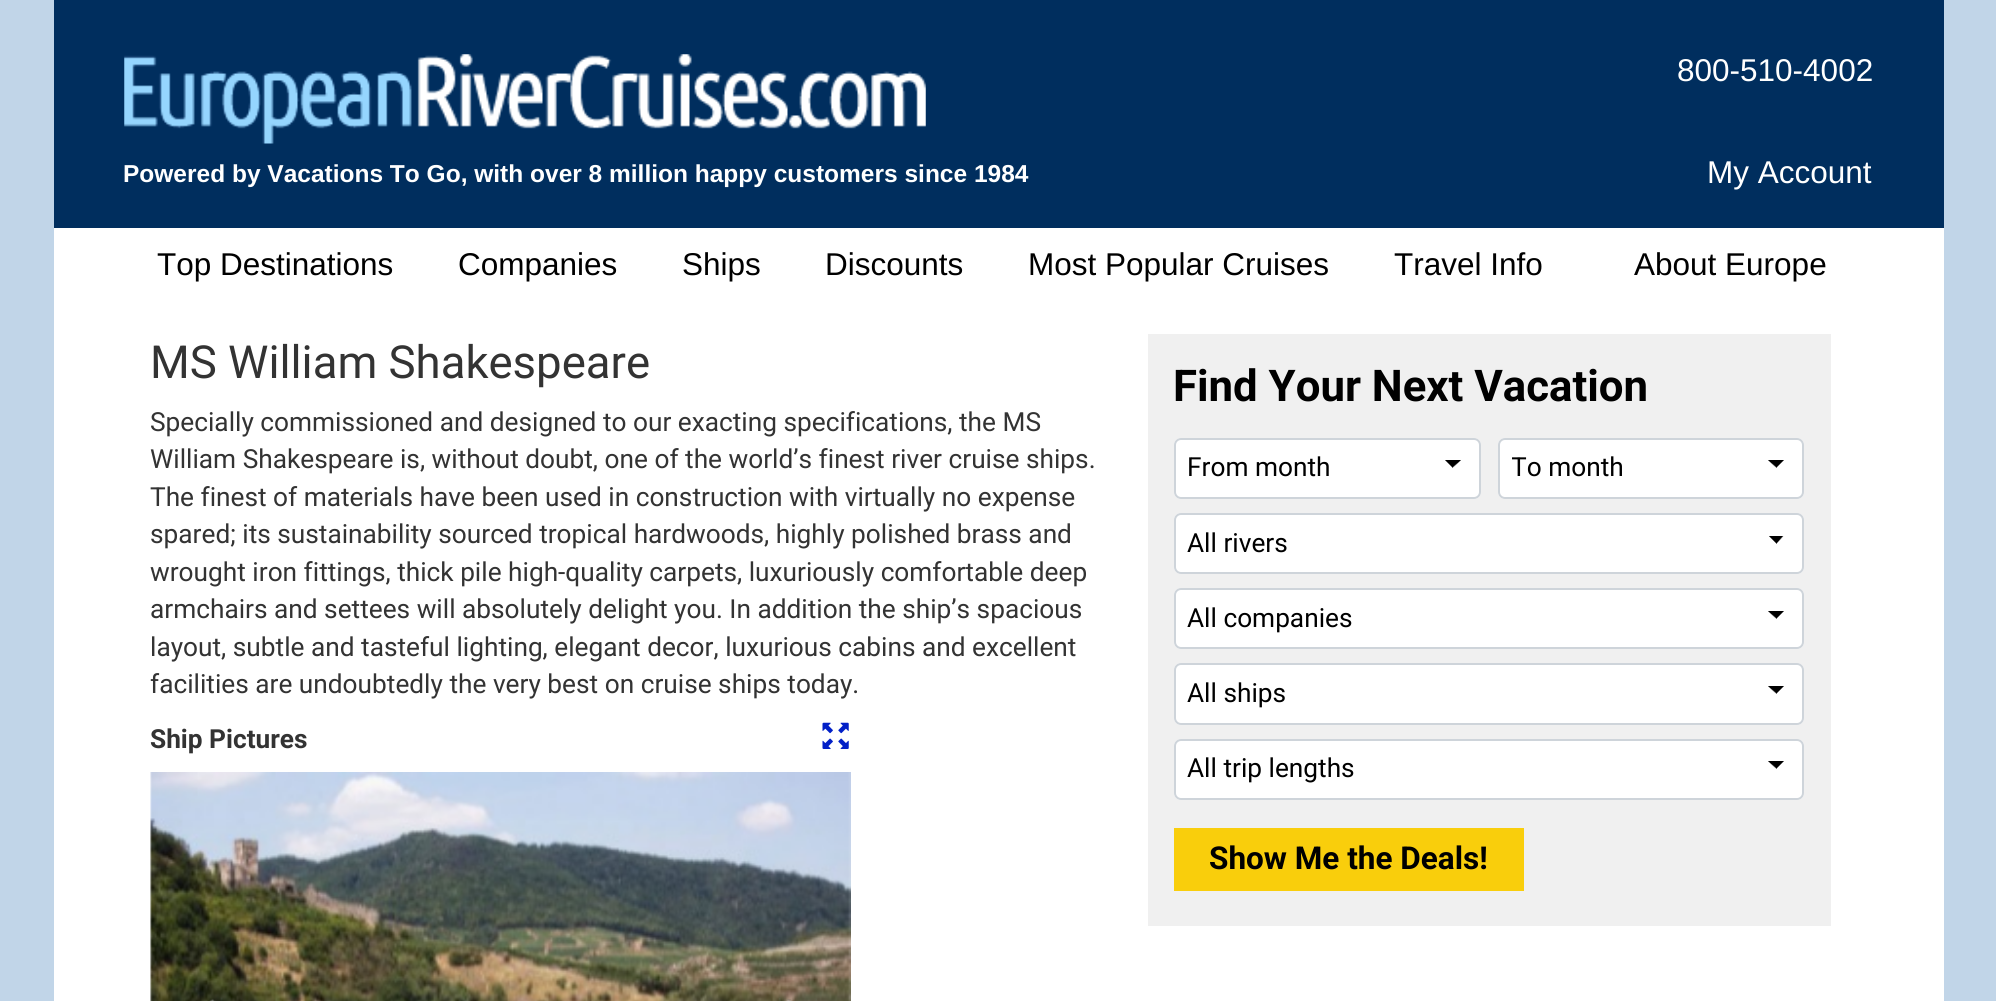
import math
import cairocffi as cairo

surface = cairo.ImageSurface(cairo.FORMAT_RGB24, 1996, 1001)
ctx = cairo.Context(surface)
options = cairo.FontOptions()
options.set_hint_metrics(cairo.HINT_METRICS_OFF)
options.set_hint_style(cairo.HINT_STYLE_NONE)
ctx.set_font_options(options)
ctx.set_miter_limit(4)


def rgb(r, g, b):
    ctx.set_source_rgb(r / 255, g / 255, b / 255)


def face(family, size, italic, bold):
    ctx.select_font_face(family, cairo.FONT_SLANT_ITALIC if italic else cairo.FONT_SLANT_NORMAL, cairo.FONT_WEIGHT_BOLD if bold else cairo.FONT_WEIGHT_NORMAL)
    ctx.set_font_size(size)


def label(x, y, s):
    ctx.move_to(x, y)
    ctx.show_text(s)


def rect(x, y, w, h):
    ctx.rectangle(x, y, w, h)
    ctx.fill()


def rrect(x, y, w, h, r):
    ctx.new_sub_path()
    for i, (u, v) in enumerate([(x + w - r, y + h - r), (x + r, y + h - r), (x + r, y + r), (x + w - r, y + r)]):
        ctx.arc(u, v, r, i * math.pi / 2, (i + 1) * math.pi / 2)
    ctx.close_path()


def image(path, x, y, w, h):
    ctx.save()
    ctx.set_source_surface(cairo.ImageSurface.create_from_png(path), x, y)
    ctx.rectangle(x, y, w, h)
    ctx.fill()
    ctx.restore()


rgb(193, 213, 232)
ctx.paint()
rgb(255, 255, 255)
rect(54, 228, 1890, 773)
rgb(0, 46, 94)
rect(54, 0, 1890, 228)
image('image0.png', 124, 54, 802, 90)
face('Liberation Sans', 24.5, 0, 1)
rgb(255, 255, 255)
label(123, 182, 'Powered by Vacations To Go, with over 8 million happy customers since 1984')
face('Liberation Sans', 31.5, 0, 0)
label(1677, 81, '800-510-4002')
label(1707, 183, 'My Account')
rgb(0, 0, 0)
label(157, 275, 'Top Destinations')
label(458, 275, 'Companies')
label(682, 275, 'Ships')
label(825, 275, 'Discounts')
label(1028, 275, 'Most Popular Cruises')
label(1394, 275, 'Travel Info')
label(1634, 275, 'About Europe')
face('Roboto', 45.5, 0, 0)
rgb(51, 51, 51)
label(150, 378, 'MS William Shakespeare')
face('Roboto', 26.25, 0, 0)
label(150, 431, 'Specially commissioned and designed to our exacting specifications, the MS')
label(150, 468, 'William Shakespeare is, without doubt, one of the world’s finest river cruise ships.')
label(150, 506, 'The finest of materials have been used in construction with virtually no expense')
label(150, 543, 'spared; its sustainability sourced tropical hardwoods, highly polished brass and')
label(150, 581, 'wrought iron fittings, thick pile high-quality carpets, luxuriously comfortable deep')
label(150, 618, 'armchairs and settees will absolutely delight you. In addition the ship’s spacious')
label(150, 656, 'layout, subtle and tasteful lighting, elegant decor, luxurious cabins and excellent')
label(150, 693, 'facilities are undoubtedly the very best on cruise ships today.')
face('Roboto', 26.25, 0, 1)
label(150, 748, 'Ship Pictures')
image('image1.png', 822, 722, 27, 27)
image('image2.png', 150, 772, 701, 229)
image('image3.png', 184, 997, 39, 4)
image('image4.png', 779, 998, 38, 3)
rgb(240, 240, 240)
rect(1148, 334, 683, 592)
face('Roboto', 43.75, 0, 1)
rgb(0, 0, 0)
label(1173, 401, 'Find Your Next Vacation')
rgb(255, 255, 255)
rrect(1174, 438, 307, 61, 7)
ctx.fill()
gradient = cairo.LinearGradient(1453, 460, 1461, 469)
gradient.add_color_stop_rgba(0.4, 0, 0, 0, 1)
gradient.add_color_stop_rgba(0.5, 1, 1, 1, 1)
ctx.set_source(gradient)
rect(1453, 460, 8, 9)
gradient = cairo.LinearGradient(1444, 469, 1453, 460)
gradient.add_color_stop_rgba(0.5, 1, 1, 1, 1)
gradient.add_color_stop_rgba(0.6, 0, 0, 0, 1)
ctx.set_source(gradient)
rect(1445, 460, 8, 8)
rrect(1175, 439, 305, 59, 6)
rgb(206, 212, 218)
ctx.stroke()
face('Roboto', 26.25, 0, 0)
rgb(0, 0, 0)
label(1187, 476, 'From month')
rgb(255, 255, 255)
rrect(1498, 438, 306, 61, 7)
ctx.fill()
gradient = cairo.LinearGradient(1776, 460, 1785, 469)
gradient.add_color_stop_rgba(0.4, 0, 0, 0, 1)
gradient.add_color_stop_rgba(0.5, 1, 1, 1, 1)
ctx.set_source(gradient)
rect(1776, 460, 8, 8)
gradient = cairo.LinearGradient(1768, 469, 1776, 460)
gradient.add_color_stop_rgba(0.5, 1, 1, 1, 1)
gradient.add_color_stop_rgba(0.6, 0, 0, 0, 1)
ctx.set_source(gradient)
rect(1768, 460, 8, 9)
rrect(1499, 439, 304, 59, 6)
rgb(206, 212, 218)
ctx.stroke()
ctx.save()
ctx.rectangle(1512, 452, 242, 31)
ctx.clip()
rgb(0, 0, 0)
label(1511, 476, 'To month')
ctx.restore()
rgb(255, 255, 255)
rrect(1174, 513, 630, 61, 7)
ctx.fill()
gradient = cairo.LinearGradient(1776, 536, 1785, 544)
gradient.add_color_stop_rgba(0.4, 0, 0, 0, 1)
gradient.add_color_stop_rgba(0.5, 1, 1, 1, 1)
ctx.set_source(gradient)
rect(1776, 536, 9, 8)
gradient = cairo.LinearGradient(1768, 544, 1776, 536)
gradient.add_color_stop_rgba(0.5, 1, 1, 1, 1)
gradient.add_color_stop_rgba(0.6, 0, 0, 0, 1)
ctx.set_source(gradient)
rect(1768, 536, 8, 7)
rrect(1175, 514, 628, 59, 6)
rgb(206, 212, 218)
ctx.stroke()
rgb(0, 0, 0)
label(1187, 552, 'All rivers')
rgb(255, 255, 255)
rrect(1174, 588, 630, 61, 7)
ctx.fill()
gradient = cairo.LinearGradient(1776, 611, 1785, 620)
gradient.add_color_stop_rgba(0.4, 0, 0, 0, 1)
gradient.add_color_stop_rgba(0.5, 1, 1, 1, 1)
ctx.set_source(gradient)
rect(1776, 611, 8, 8)
gradient = cairo.LinearGradient(1768, 620, 1776, 611)
gradient.add_color_stop_rgba(0.5, 1, 1, 1, 1)
gradient.add_color_stop_rgba(0.6, 0, 0, 0, 1)
ctx.set_source(gradient)
rect(1768, 611, 8, 9)
rrect(1175, 589, 628, 59, 6)
rgb(206, 212, 218)
ctx.stroke()
rgb(0, 0, 0)
label(1187, 627, 'All companies')
rgb(255, 255, 255)
rrect(1174, 663, 630, 62, 7)
ctx.fill()
gradient = cairo.LinearGradient(1776, 686, 1785, 695)
gradient.add_color_stop_rgba(0.4, 0, 0, 0, 1)
gradient.add_color_stop_rgba(0.5, 1, 1, 1, 1)
ctx.set_source(gradient)
rect(1776, 686, 8, 8)
gradient = cairo.LinearGradient(1768, 695, 1776, 686)
gradient.add_color_stop_rgba(0.5, 1, 1, 1, 1)
gradient.add_color_stop_rgba(0.6, 0, 0, 0, 1)
ctx.set_source(gradient)
rect(1768, 686, 8, 9)
rrect(1175, 664, 628, 60, 6)
rgb(206, 212, 218)
ctx.stroke()
rgb(0, 0, 0)
label(1187, 702, 'All ships')
rgb(255, 255, 255)
rrect(1174, 739, 630, 61, 7)
ctx.fill()
gradient = cairo.LinearGradient(1776, 761, 1785, 770)
gradient.add_color_stop_rgba(0.4, 0, 0, 0, 1)
gradient.add_color_stop_rgba(0.5, 1, 1, 1, 1)
ctx.set_source(gradient)
rect(1776, 761, 8, 8)
gradient = cairo.LinearGradient(1768, 770, 1776, 761)
gradient.add_color_stop_rgba(0.5, 1, 1, 1, 1)
gradient.add_color_stop_rgba(0.6, 0, 0, 0, 1)
ctx.set_source(gradient)
rect(1768, 761, 8, 9)
rrect(1175, 740, 628, 59, 6)
rgb(206, 212, 218)
ctx.stroke()
rgb(0, 0, 0)
label(1187, 777, 'All trip lengths')
rgb(249, 206, 12)
rect(1174, 828, 350, 63)
face('Roboto', 31.5, 0, 1)
rgb(0, 0, 0)
label(1209, 869, 'Show Me the Deals!')
surface.write_to_png('render.png')
